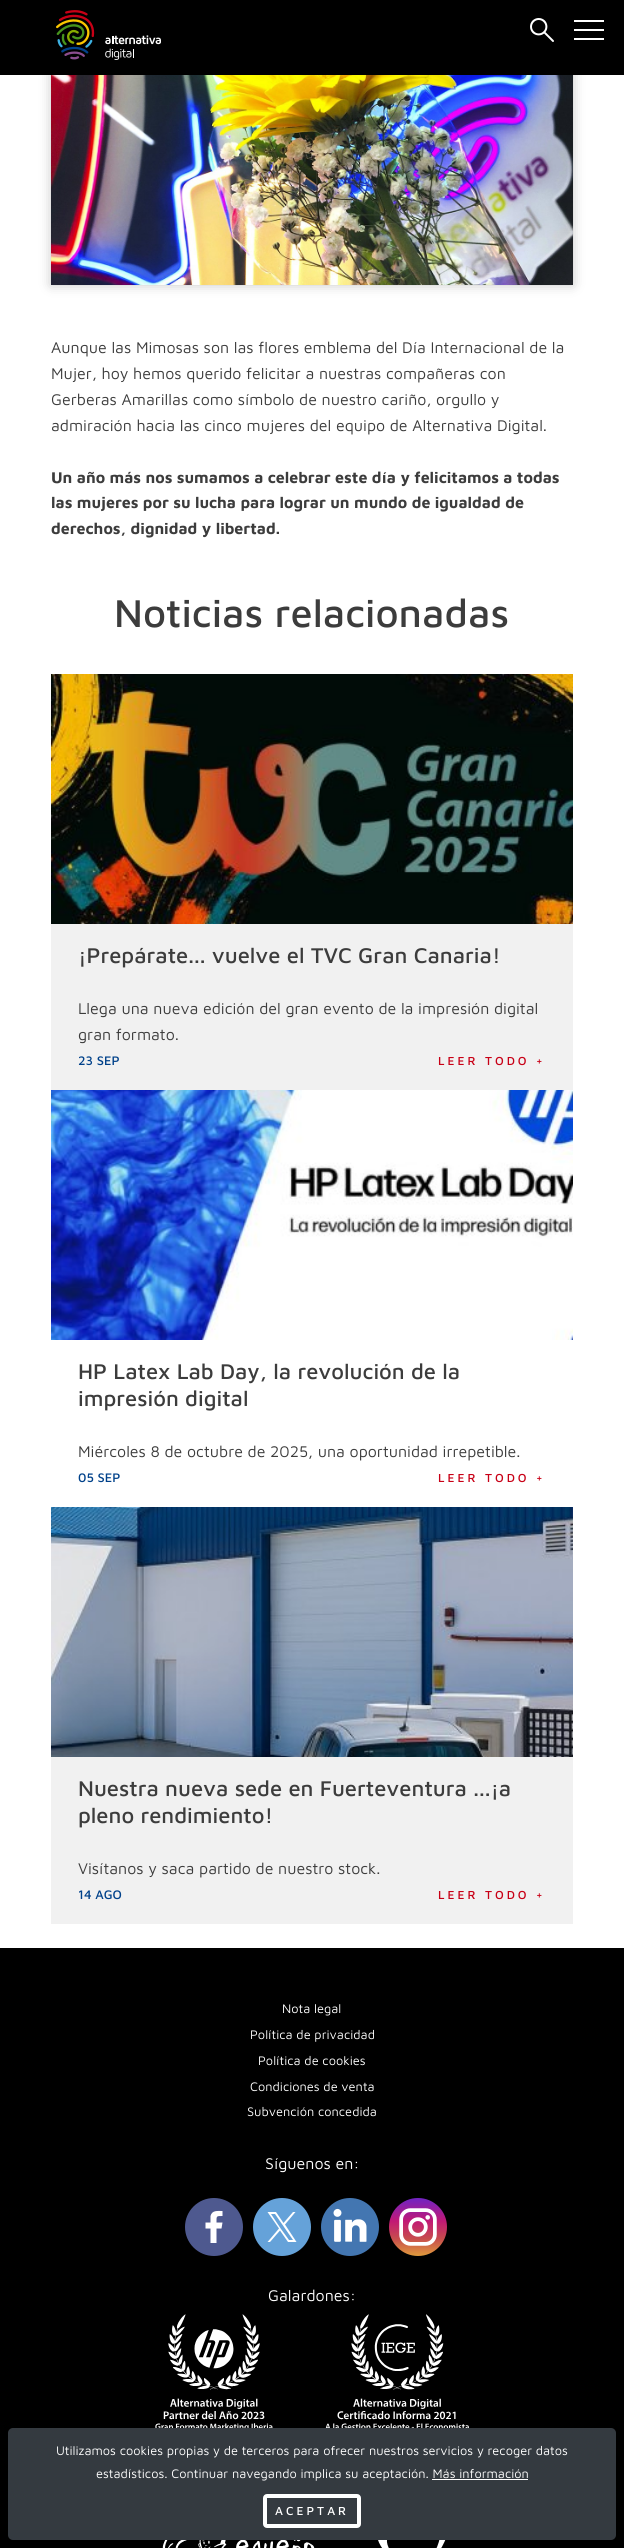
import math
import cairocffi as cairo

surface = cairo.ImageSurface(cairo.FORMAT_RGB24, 624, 2548)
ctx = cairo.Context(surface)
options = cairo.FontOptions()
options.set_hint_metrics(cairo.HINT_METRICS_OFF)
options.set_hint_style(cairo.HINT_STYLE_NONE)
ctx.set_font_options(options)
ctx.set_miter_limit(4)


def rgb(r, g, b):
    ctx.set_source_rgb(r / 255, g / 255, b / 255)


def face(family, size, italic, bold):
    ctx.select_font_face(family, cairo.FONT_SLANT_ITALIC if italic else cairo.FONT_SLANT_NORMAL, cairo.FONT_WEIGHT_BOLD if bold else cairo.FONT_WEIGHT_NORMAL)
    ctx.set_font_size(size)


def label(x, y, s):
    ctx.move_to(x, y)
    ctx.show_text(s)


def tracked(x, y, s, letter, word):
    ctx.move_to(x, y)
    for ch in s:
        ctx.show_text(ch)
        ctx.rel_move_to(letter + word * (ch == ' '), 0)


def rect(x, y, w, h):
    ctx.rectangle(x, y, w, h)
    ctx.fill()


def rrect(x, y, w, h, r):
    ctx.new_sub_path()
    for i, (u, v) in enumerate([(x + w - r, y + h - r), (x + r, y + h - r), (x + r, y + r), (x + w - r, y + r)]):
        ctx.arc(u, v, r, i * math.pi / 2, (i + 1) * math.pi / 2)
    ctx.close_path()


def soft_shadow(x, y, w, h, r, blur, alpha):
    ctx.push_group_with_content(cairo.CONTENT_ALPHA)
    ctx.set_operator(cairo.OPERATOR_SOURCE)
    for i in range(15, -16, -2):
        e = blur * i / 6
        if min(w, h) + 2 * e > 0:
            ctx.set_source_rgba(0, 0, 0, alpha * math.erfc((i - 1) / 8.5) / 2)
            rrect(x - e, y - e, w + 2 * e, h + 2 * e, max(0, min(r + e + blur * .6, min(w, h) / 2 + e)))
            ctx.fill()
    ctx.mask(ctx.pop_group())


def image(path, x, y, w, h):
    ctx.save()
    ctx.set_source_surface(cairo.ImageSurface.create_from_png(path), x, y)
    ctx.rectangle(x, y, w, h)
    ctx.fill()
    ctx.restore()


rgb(255, 255, 255)
ctx.paint()
rgb(0, 0, 0)
soft_shadow(51, -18, 522, 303, 0, 6, 0.22)
rgb(0, 0, 0)
rect(0, 0, 624, 75)
image('image0.png', 56, 10, 105, 50)
image('image1.png', 530, 18, 24, 24)
rgb(255, 255, 255)
rect(574, 20, 30, 2)
rect(574, 29, 30, 2)
rect(574, 38, 30, 2)
image('image2.png', 51, 75, 522, 210)
face('Maven Pro', 16, 0, 0)
rgb(60, 60, 60)
label(51, 353, 'Aunque las Mimosas son las flores emblema del Día Internacional de la')
label(51, 379, 'Mujer, hoy hemos querido felicitar a nuestras compañeras con')
label(51, 405, 'Gerberas Amarillas como símbolo de nuestro cariño, orgullo y')
label(51, 431, 'admiración hacia las cinco mujeres del equipo de Alternativa Digital.')
face('Maven Pro', 16, 0, 1)
label(51, 483, 'Un año más nos sumamos a celebrar este día y felicitamos a todas')
label(51, 508, 'las mujeres por su lucha para lograr un mundo de igualdad de')
label(51, 534, 'derechos, dignidad y libertad.')
face('Maven Pro Medium', 40, 0, 0)
label(114, 627, 'Noticias relacionadas')
rgb(241, 241, 241)
rect(51, 924, 522, 166)
image('image3.png', 51, 674, 522, 250)
face('Maven Pro Medium', 22, 0, 0)
rgb(60, 60, 60)
label(78, 963, '¡Prepárate... vuelve el TVC Gran Canaria!')
face('Maven Pro', 16, 0, 0)
label(78, 1014, 'Llega una nueva edición del gran evento de la impresión digital')
label(78, 1040, 'gran formato.')
face('Maven Pro Medium', 12.8, 0, 0)
rgb(0, 65, 138)
label(78, 1065, '23 SEP')
face('Maven Pro Medium', 12, 0, 0)
rgb(200, 0, 22)
tracked(438, 1065, 'LEER TODO +', 3, 0)
image('image4.png', 51, 1090, 522, 250)
face('Maven Pro Medium', 22, 0, 0)
rgb(60, 60, 60)
label(78, 1379, 'HP Latex Lab Day, la revolución de la')
label(78, 1406, 'impresión digital')
face('Maven Pro', 16, 0, 0)
label(78, 1457, 'Miércoles 8 de octubre de 2025, una oportunidad irrepetible.')
face('Maven Pro Medium', 12.8, 0, 0)
rgb(0, 65, 138)
label(78, 1482, '05 SEP')
face('Maven Pro Medium', 12, 0, 0)
rgb(200, 0, 22)
tracked(438, 1482, 'LEER TODO +', 3, 0)
rgb(241, 241, 241)
rect(51, 1757, 522, 167)
image('image5.png', 51, 1507, 522, 250)
face('Maven Pro Medium', 22, 0, 0)
rgb(60, 60, 60)
label(78, 1796, 'Nuestra nueva sede en Fuerteventura ...¡a')
label(78, 1823, 'pleno rendimiento!')
face('Maven Pro', 16, 0, 0)
label(78, 1874, 'Visítanos y saca partido de nuestro stock.')
face('Maven Pro Medium', 12.8, 0, 0)
rgb(0, 65, 138)
label(78, 1899, '14 AGO')
face('Maven Pro Medium', 12, 0, 0)
rgb(200, 0, 22)
tracked(438, 1899, 'LEER TODO +', 3, 0)
rgb(0, 0, 0)
rect(0, 1948, 624, 600)
face('Maven Pro', 12.8, 0, 0)
rgb(255, 255, 255)
label(282, 2013, 'Nota legal')
label(250, 2039, 'Política de privacidad')
label(258, 2065, 'Política de cookies')
label(250, 2091, 'Condiciones de venta')
label(247, 2116, 'Subvención concedida')
face('Maven Pro', 16, 0, 0)
label(265, 2169, 'Síguenos en:')
rgb(78, 89, 143)
ctx.new_path()
ctx.arc(214, 2227, 29, 0, 2 * math.pi)
ctx.fill()
rgb(255, 255, 255)
ctx.new_path()
ctx.move_to(216.5, 2228.5)
ctx.line_to(221.5, 2228.5)
ctx.line_to(222.5, 2222.5)
ctx.line_to(216.5, 2222.5)
ctx.curve_to(216.5, 2216, 216, 2216, 222.5, 2216)
ctx.line_to(222.5, 2211)
ctx.curve_to(217.5, 2211, 212, 2210, 210.5, 2216)
ctx.line_to(210.5, 2222.5)
ctx.line_to(205.5, 2222.5)
ctx.line_to(205.5, 2228.5)
ctx.line_to(210.5, 2228.5)
ctx.line_to(210.5, 2243)
ctx.line_to(216.5, 2243)
ctx.close_path()
ctx.fill()
rgb(101, 162, 217)
ctx.arc(282, 2227, 29, 0, 2 * math.pi)
ctx.fill()
rgb(255, 255, 255)
ctx.new_path()
ctx.move_to(285, 2224.5)
ctx.line_to(295.5, 2212)
ctx.line_to(293, 2212)
ctx.line_to(283.5, 2223)
ctx.line_to(276, 2212)
ctx.line_to(267.5, 2212)
ctx.line_to(279, 2228.5)
ctx.line_to(267.5, 2242)
ctx.line_to(270, 2242)
ctx.line_to(280, 2230.5)
ctx.line_to(288, 2242)
ctx.line_to(296.5, 2242)
ctx.close_path()
ctx.move_to(281, 2229)
ctx.line_to(271, 2214)
ctx.line_to(275, 2214)
ctx.line_to(293, 2240)
ctx.line_to(289, 2240)
ctx.close_path()
ctx.fill()
image('image6.png', 321, 2198, 58, 58)
image('image7.png', 389, 2198, 58, 58)
label(268, 2301, 'Galardones:')
image('image8.png', 155, 2314, 118, 114)
image('image9.png', 325, 2314, 144, 114)
image('image10.png', 162, 2540, 153, 8)
image('image11.png', 378, 2540, 68, 8)
rgb(52, 58, 64)
rrect(8, 2428, 608, 112, 5)
ctx.fill()
face('Maven Pro', 12.8, 0, 0)
rgb(255, 255, 255)
label(56, 2455, 'Utilizamos cookies propias y de terceros para ofrecer nuestros servicios y recoger datos')
label(96, 2478, 'estadísticos. Continuar navegando implica su aceptación. Más información')
rect(432, 2479, 96, 1)
rrect(265, 2496, 94, 30, 2)
ctx.set_line_width(4)
ctx.stroke()
face('Maven Pro Medium', 12, 0, 0)
tracked(275, 2515, 'ACEPTAR', 3, 0)
surface.write_to_png('render.png')
